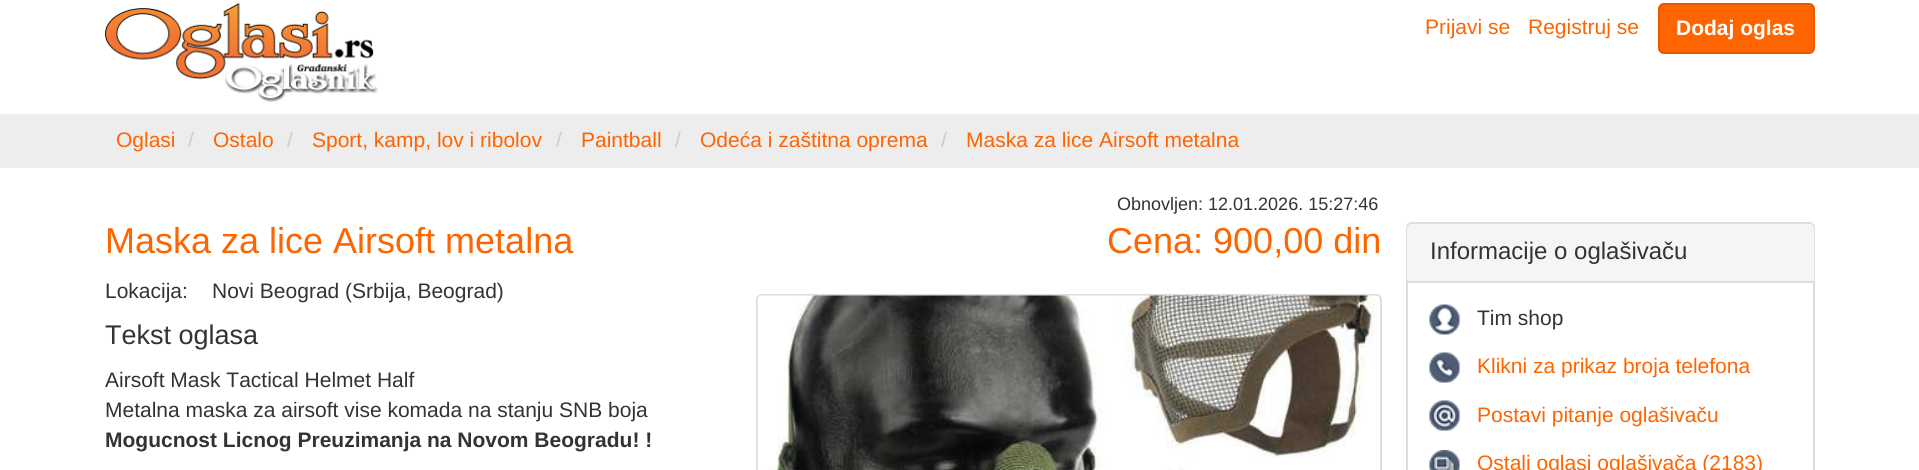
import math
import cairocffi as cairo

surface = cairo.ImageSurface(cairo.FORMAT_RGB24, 1919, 470)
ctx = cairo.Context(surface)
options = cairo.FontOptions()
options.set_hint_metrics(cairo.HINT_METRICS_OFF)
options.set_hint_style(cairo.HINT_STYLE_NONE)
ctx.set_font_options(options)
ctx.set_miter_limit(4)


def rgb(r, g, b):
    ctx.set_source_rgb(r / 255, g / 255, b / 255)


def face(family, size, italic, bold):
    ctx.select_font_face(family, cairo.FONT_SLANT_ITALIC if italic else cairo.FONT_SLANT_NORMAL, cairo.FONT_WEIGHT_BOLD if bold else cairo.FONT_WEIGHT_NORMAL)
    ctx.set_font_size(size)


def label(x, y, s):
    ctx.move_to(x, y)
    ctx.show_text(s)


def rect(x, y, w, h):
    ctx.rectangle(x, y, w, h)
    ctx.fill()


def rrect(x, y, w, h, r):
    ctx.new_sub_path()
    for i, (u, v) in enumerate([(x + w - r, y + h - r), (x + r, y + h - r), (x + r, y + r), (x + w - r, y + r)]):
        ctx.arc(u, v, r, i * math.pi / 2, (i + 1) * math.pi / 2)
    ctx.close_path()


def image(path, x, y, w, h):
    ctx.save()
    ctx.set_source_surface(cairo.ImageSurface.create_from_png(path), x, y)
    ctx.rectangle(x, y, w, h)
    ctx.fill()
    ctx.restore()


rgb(255, 255, 255)
ctx.paint()
image('image0.png', 105, 3, 273, 99)
face('Liberation Sans', 21, 0, 0)
rgb(254, 100, 0)
label(1425, 34, 'Prijavi se')
label(1528, 34, 'Registruj se')
rrect(1659, 4, 155, 49, 5)
ctx.fill_preserve()
rgb(229, 90, 0)
ctx.stroke()
face('Liberation Sans', 21, 0, 1)
rgb(255, 255, 255)
label(1676, 35, 'Dodaj oglas')
rgb(237, 237, 237)
rect(0, 114, 1919, 54)
face('Liberation Sans', 21, 0, 0)
rgb(254, 100, 0)
label(116, 147, 'Oglasi')
rgb(204, 204, 204)
label(188, 147, '/')
rgb(254, 100, 0)
label(213, 147, 'Ostalo')
rgb(204, 204, 204)
label(287, 147, '/')
rgb(254, 100, 0)
label(312, 147, 'Sport, kamp, lov i ribolov')
rgb(204, 204, 204)
label(556, 147, '/')
rgb(254, 100, 0)
label(581, 147, 'Paintball')
rgb(204, 204, 204)
label(675, 147, '/')
rgb(254, 100, 0)
label(700, 147, 'Odeća i zaštitna oprema')
rgb(204, 204, 204)
label(941, 147, '/')
rgb(254, 100, 0)
label(966, 147, 'Maska za lice Airsoft metalna')
face('Liberation Sans', 36, 0, 0)
label(105, 253, 'Maska za lice Airsoft metalna')
face('Liberation Sans', 21, 0, 0)
rgb(51, 51, 51)
label(105, 298, 'Lokacija:')
label(212, 298, 'Novi Beograd (Srbija, Beograd)')
face('Liberation Sans', 27, 0, 0)
label(105, 344, 'Tekst oglasa')
face('Liberation Sans', 21, 0, 0)
label(105, 387, 'Airsoft Mask Tactical Helmet Half')
label(105, 417, 'Metalna maska za airsoft vise komada na stanju SNB boja')
face('Liberation Sans', 21, 0, 1)
label(105, 447, 'Mogucnost Licnog Preuzimanja na Novom Beogradu! !')
face('Liberation Sans', 18, 0, 0)
label(1117, 210, 'Obnovljen: 12.01.2026. 15:27:46')
face('Liberation Sans', 36, 0, 0)
rgb(254, 100, 0)
label(1107, 253, 'Cena: 900,00 din')
rrect(757, 295, 624, 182, 5)
rgb(221, 221, 221)
ctx.stroke()
image('image1.png', 757, 295, 623, 175)
rrect(1407, 223, 407, 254, 5)
ctx.stroke()
rgb(245, 245, 245)
ctx.new_path()
ctx.move_to(1412, 224)
ctx.line_to(1809, 224)
ctx.curve_to(1812, 224, 1814, 226, 1814, 229)
ctx.line_to(1814, 282)
ctx.line_to(1407, 282)
ctx.line_to(1407, 229)
ctx.curve_to(1407, 226, 1409, 224, 1412, 224)
ctx.close_path()
ctx.fill()
rgb(221, 221, 221)
rect(1407, 281, 407, 2)
face('Liberation Sans', 24, 0, 0)
rgb(51, 51, 51)
label(1430, 259, 'Informacije o oglašivaču')
image('image2.png', 1429, 304, 31, 31)
face('Liberation Sans', 21, 0, 0)
label(1477, 325, 'Tim shop')
image('image3.png', 1429, 352, 31, 31)
rgb(254, 100, 0)
label(1477, 373, 'Klikni za prikaz broja telefona')
image('image4.png', 1429, 400, 31, 31)
label(1477, 422, 'Postavi pitanje oglašivaču')
image('image5.png', 1429, 450, 31, 20)
label(1477, 470, 'Ostali oglasi oglašivača (2183)')
surface.write_to_png('render.png')
